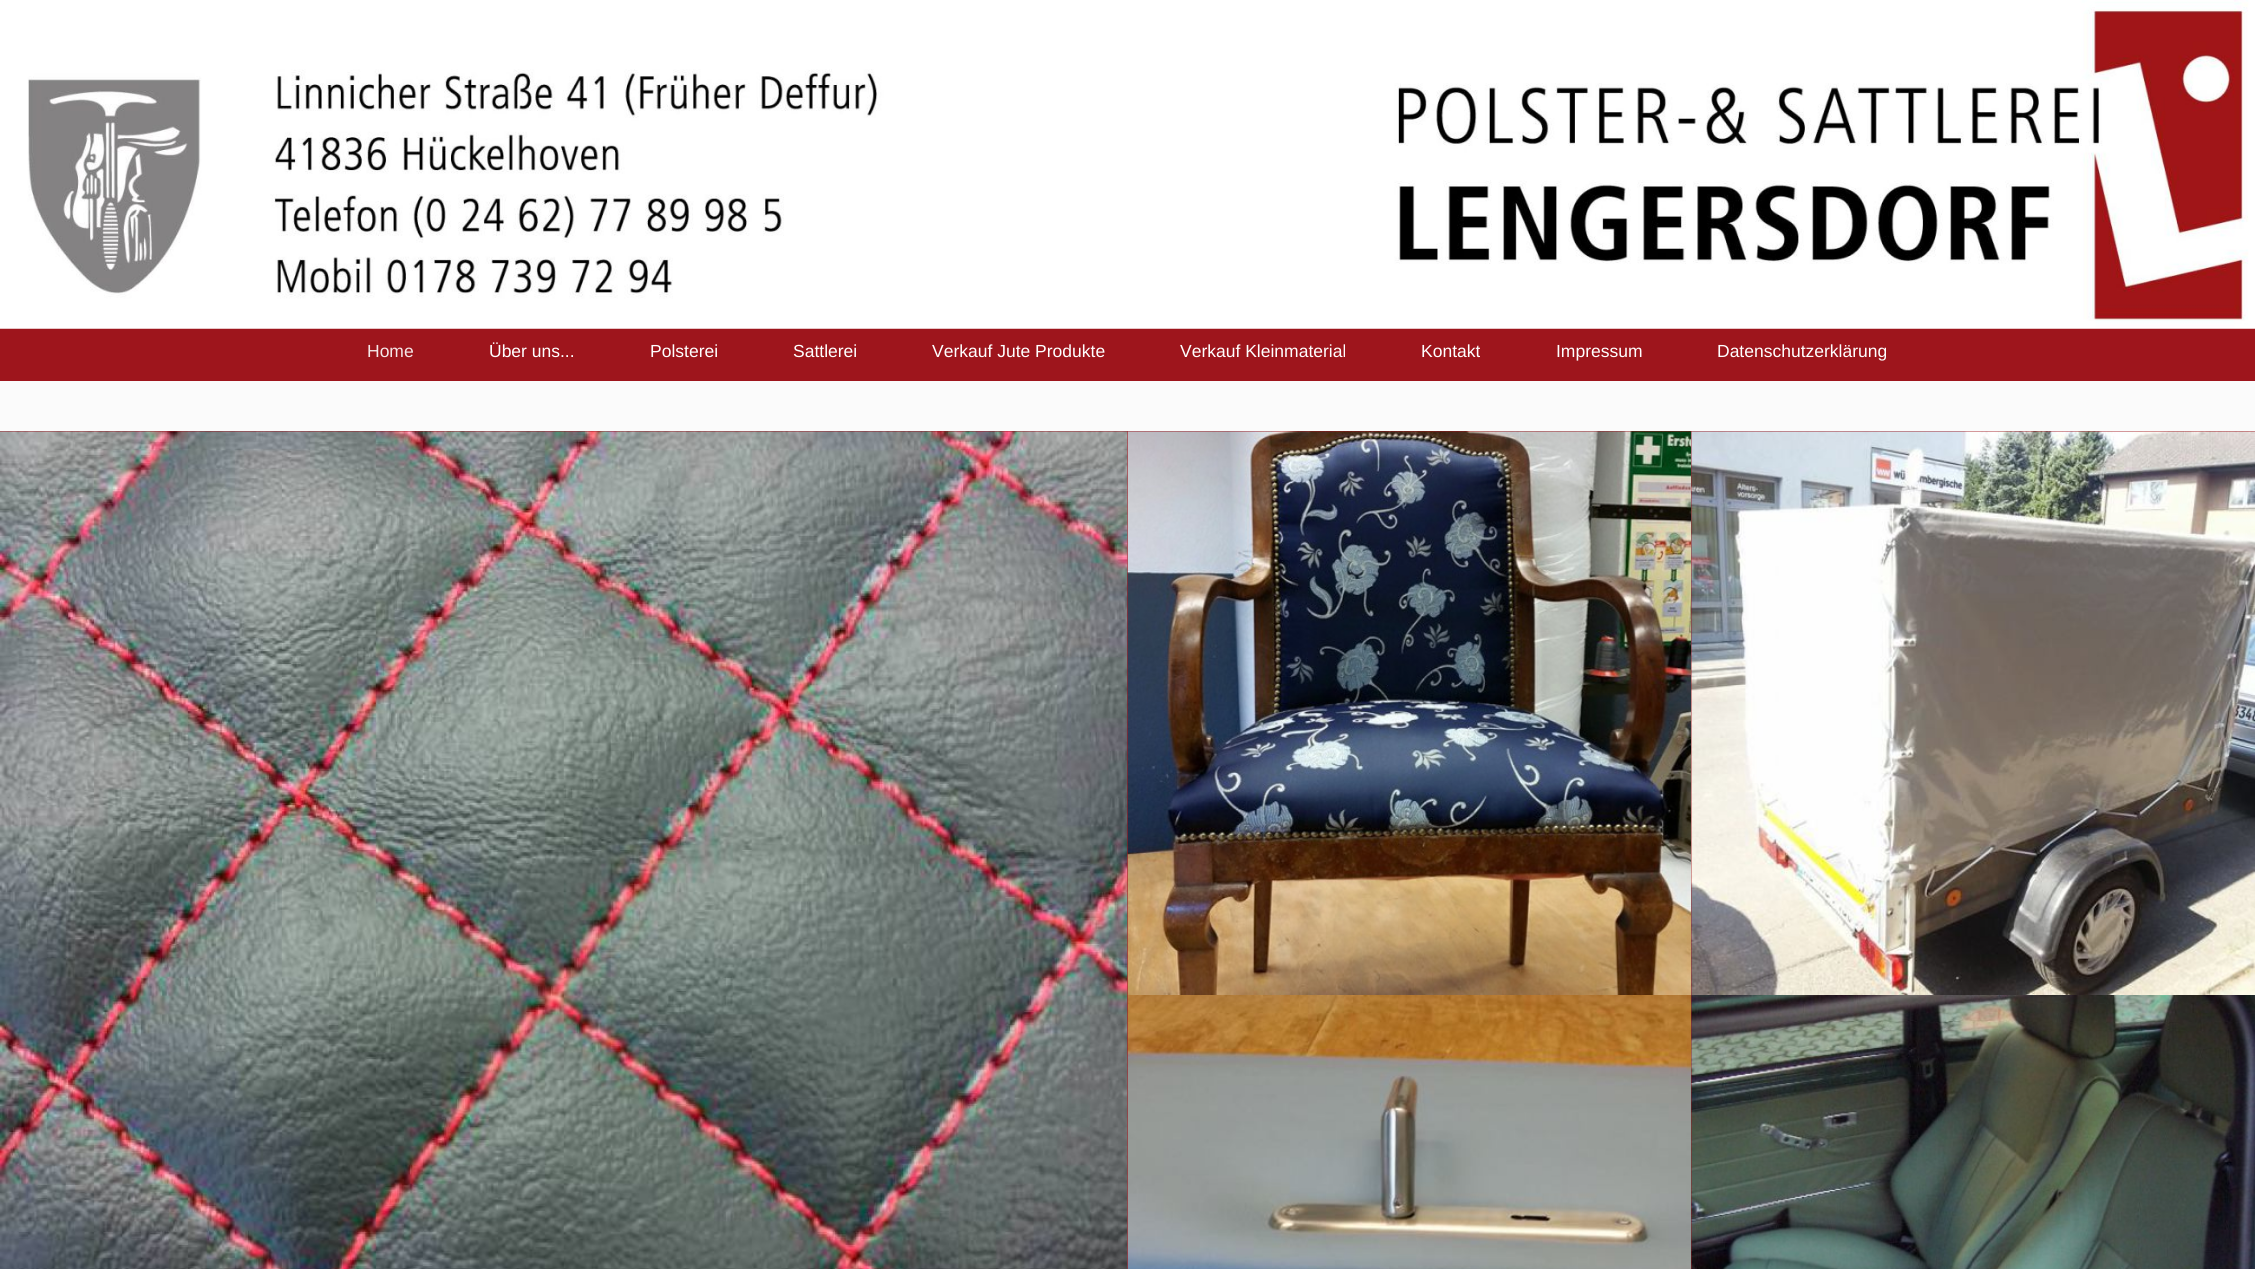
import math
import cairocffi as cairo

surface = cairo.ImageSurface(cairo.FORMAT_RGB24, 2255, 1269)
ctx = cairo.Context(surface)
options = cairo.FontOptions()
options.set_hint_metrics(cairo.HINT_METRICS_OFF)
options.set_hint_style(cairo.HINT_STYLE_NONE)
ctx.set_font_options(options)
ctx.set_miter_limit(4)


def rgb(r, g, b):
    ctx.set_source_rgb(r / 255, g / 255, b / 255)


def face(family, size, italic, bold):
    ctx.select_font_face(family, cairo.FONT_SLANT_ITALIC if italic else cairo.FONT_SLANT_NORMAL, cairo.FONT_WEIGHT_BOLD if bold else cairo.FONT_WEIGHT_NORMAL)
    ctx.set_font_size(size)


def label(x, y, s):
    ctx.move_to(x, y)
    ctx.show_text(s)


def rect(x, y, w, h):
    ctx.rectangle(x, y, w, h)
    ctx.fill()


def image(path, x, y, w, h):
    ctx.save()
    ctx.set_source_surface(cairo.ImageSurface.create_from_png(path), x, y)
    ctx.rectangle(x, y, w, h)
    ctx.fill()
    ctx.restore()


rgb(158, 21, 28)
ctx.paint()
image('image0.png', 0, 0, 2255, 329)
face('Liberation Sans', 17.5, 0, 0)
rgb(245, 232, 232)
label(367, 357, 'Home')
rgb(255, 255, 255)
label(489, 357, 'Über uns...')
label(650, 357, 'Polsterei')
label(793, 357, 'Sattlerei')
label(932, 357, 'Verkauf Jute Produkte')
label(1180, 357, 'Verkauf Kleinmaterial')
label(1421, 357, 'Kontakt')
label(1556, 357, 'Impressum')
label(1717, 357, 'Datenschutzerklärung')
rgb(251, 251, 251)
rect(0, 381, 2255, 50)
image('image1.png', 0, 431, 1128, 838)
image('image2.png', 1127, 431, 565, 564)
image('image3.png', 1127, 995, 565, 274)
image('image4.png', 1691, 431, 564, 564)
image('image5.png', 1691, 995, 564, 274)
surface.write_to_png('render.png')
